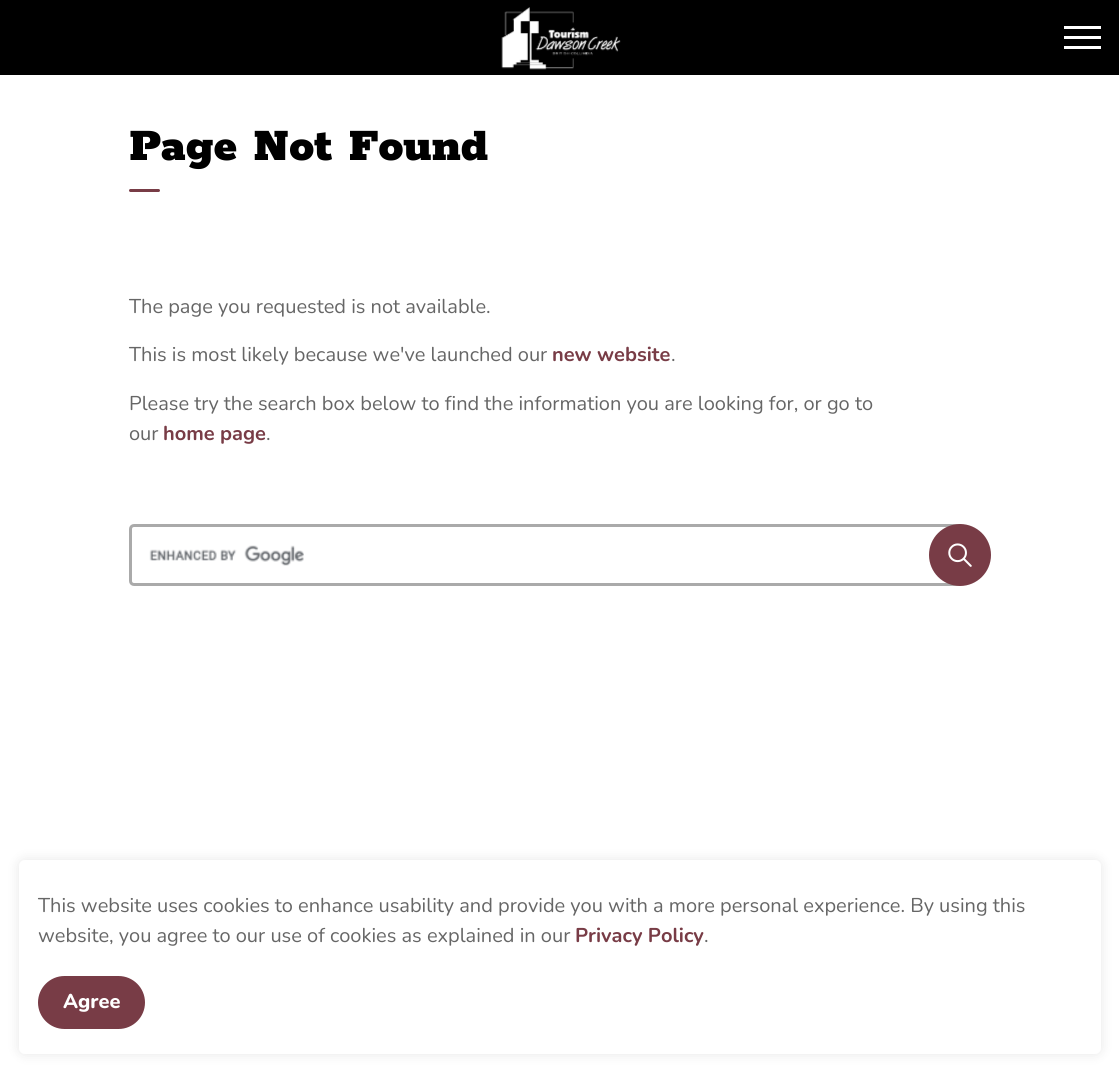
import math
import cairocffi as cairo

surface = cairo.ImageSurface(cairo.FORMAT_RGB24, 1119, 1072)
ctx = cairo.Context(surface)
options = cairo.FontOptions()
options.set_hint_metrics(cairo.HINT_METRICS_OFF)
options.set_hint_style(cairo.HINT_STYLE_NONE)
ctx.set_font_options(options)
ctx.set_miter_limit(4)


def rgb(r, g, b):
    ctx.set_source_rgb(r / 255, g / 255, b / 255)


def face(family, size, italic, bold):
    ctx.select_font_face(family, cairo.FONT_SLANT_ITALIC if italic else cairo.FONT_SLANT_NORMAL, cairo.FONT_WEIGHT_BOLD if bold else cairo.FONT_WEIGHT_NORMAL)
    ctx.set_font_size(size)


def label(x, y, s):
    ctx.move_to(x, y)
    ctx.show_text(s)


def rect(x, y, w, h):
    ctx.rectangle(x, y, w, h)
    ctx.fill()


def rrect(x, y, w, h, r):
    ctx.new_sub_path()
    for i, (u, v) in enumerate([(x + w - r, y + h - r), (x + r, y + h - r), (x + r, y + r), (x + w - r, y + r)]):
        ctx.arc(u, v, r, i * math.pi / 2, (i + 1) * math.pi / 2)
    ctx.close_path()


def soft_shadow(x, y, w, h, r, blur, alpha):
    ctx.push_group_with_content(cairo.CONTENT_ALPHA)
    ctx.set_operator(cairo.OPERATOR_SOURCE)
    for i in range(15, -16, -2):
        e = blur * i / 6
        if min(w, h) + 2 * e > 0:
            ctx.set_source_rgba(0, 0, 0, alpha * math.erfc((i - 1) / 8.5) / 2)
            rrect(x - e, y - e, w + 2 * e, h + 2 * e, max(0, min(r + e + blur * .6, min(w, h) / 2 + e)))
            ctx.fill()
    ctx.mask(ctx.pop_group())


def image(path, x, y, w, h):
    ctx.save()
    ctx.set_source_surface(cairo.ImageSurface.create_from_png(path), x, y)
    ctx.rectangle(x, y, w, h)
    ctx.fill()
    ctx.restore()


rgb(255, 255, 255)
ctx.paint()
rgb(0, 0, 0)
rect(0, 0, 1119, 75)
image('image0.png', 501, 7, 120, 63)
rgb(255, 255, 255)
rect(1064, 36, 37, 3)
rect(1064, 26, 37, 3)
rect(1064, 46, 37, 3)
face('Rokkitt Black', 50, 0, 0)
rgb(0, 0, 0)
label(129, 160, 'Page Not Found')
rgb(120, 60, 70)
rrect(129, 189, 31, 3, 1.5)
ctx.fill()
face('Nunito', 20, 0, 0)
rgb(102, 102, 102)
label(129, 313, 'The page you requested is not available.')
label(129, 361, 'This is most likely because we\'ve launched our')
face('Nunito', 20, 0, 1)
rgb(120, 60, 70)
label(552, 361, 'new website')
face('Nunito', 20, 0, 0)
rgb(102, 102, 102)
label(671, 361, '.')
label(129, 410, 'Please try the search box below to find the information you are looking for, or go to')
label(129, 440, 'our')
face('Nunito', 20, 0, 1)
rgb(120, 60, 70)
label(163, 440, 'home page')
face('Nunito', 20, 0, 0)
rgb(102, 102, 102)
label(266, 440, '.')
image('image1.png', 149, 545, 155, 21)
ctx.new_path()
ctx.move_to(134, 525.5)
ctx.line_to(952, 525.5)
ctx.curve_to(968.5, 525.5, 981.5, 538.5, 981.5, 555)
ctx.curve_to(981.5, 571.5, 968.5, 584.5, 952, 584.5)
ctx.line_to(134, 584.5)
ctx.curve_to(132, 584.5, 130.5, 583, 130.5, 581)
ctx.line_to(130.5, 529)
ctx.curve_to(130.5, 527, 132, 525.5, 134, 525.5)
ctx.close_path()
rgb(170, 170, 170)
ctx.set_line_width(3)
ctx.stroke()
rgb(120, 60, 70)
ctx.arc(960, 555, 29.5, 0, 2 * math.pi)
ctx.fill_preserve()
ctx.stroke()
image('image2.png', 948, 543, 24, 24)
rgb(0, 0, 0)
soft_shadow(19, 860, 1082, 194, 6, 6, 0.1)
rgb(255, 255, 255)
rrect(19, 860, 1082, 194, 6)
ctx.fill()
rgb(102, 102, 102)
label(38, 912, 'This website uses cookies to enhance usability and provide you with a more personal experience. By using this')
label(38, 942, 'website, you agree to our use of cookies as explained in our')
face('Nunito', 20, 0, 1)
rgb(120, 60, 70)
label(575, 942, 'Privacy Policy')
face('Nunito', 20, 0, 0)
rgb(102, 102, 102)
label(704, 942, '.')
rgb(120, 60, 70)
rrect(39.5, 977.5, 104, 50, 25)
ctx.fill_preserve()
ctx.stroke()
face('Nunito ExtraBold', 20, 0, 0)
rgb(255, 255, 255)
label(63, 1008, 'Agree')
surface.write_to_png('render.png')
